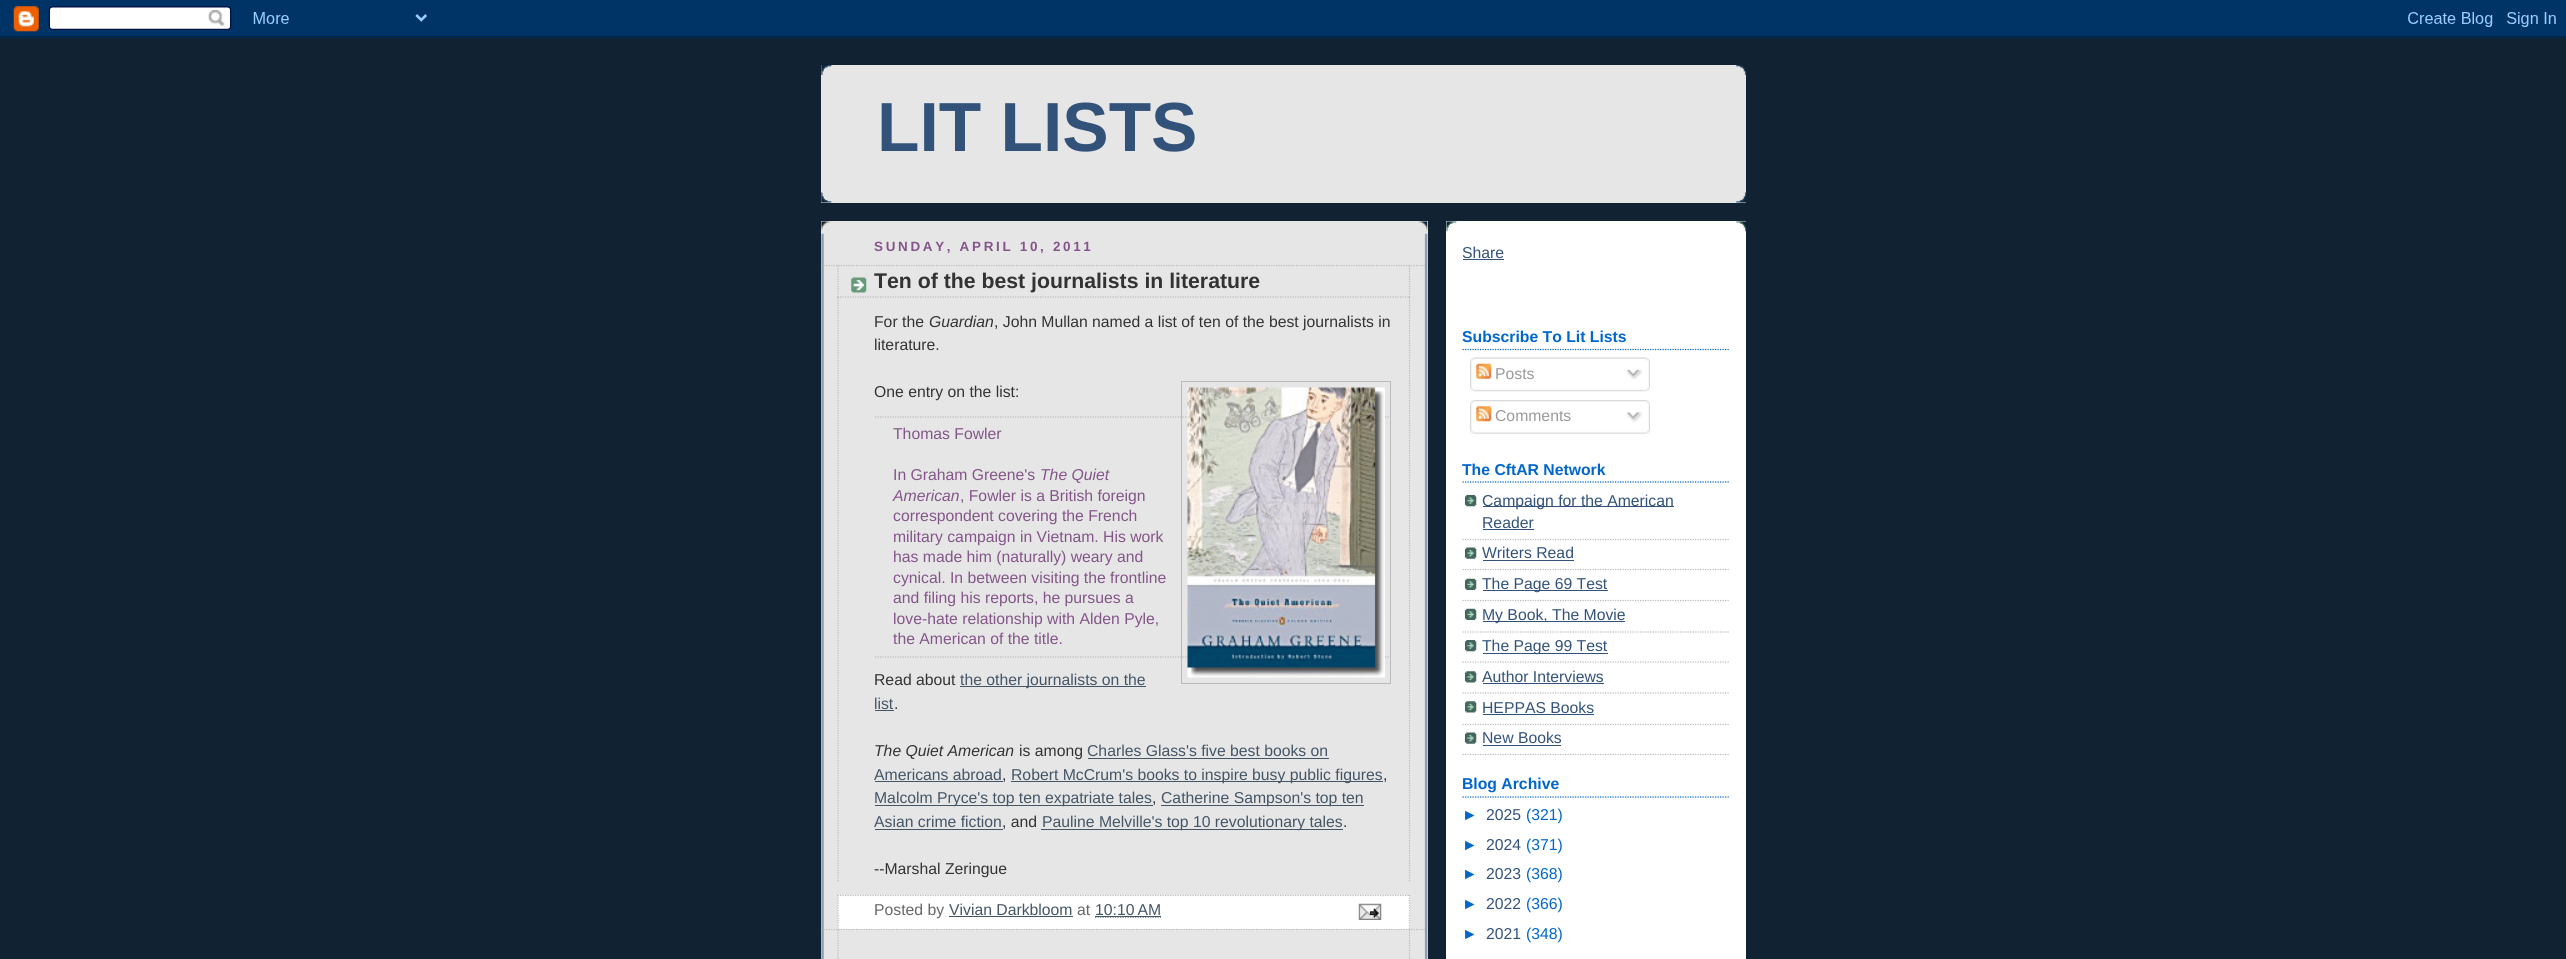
import math
import cairocffi as cairo

surface = cairo.ImageSurface(cairo.FORMAT_RGB24, 2566, 959)
ctx = cairo.Context(surface)
options = cairo.FontOptions()
options.set_hint_metrics(cairo.HINT_METRICS_OFF)
options.set_hint_style(cairo.HINT_STYLE_NONE)
ctx.set_font_options(options)
ctx.set_miter_limit(4)


def rgb(r, g, b):
    ctx.set_source_rgb(r / 255, g / 255, b / 255)


def face(family, size, italic, bold):
    ctx.select_font_face(family, cairo.FONT_SLANT_ITALIC if italic else cairo.FONT_SLANT_NORMAL, cairo.FONT_WEIGHT_BOLD if bold else cairo.FONT_WEIGHT_NORMAL)
    ctx.set_font_size(size)


def label(x, y, s):
    ctx.move_to(x, y)
    ctx.show_text(s)


def tracked(x, y, s, letter, word):
    ctx.move_to(x, y)
    for ch in s:
        ctx.show_text(ch)
        ctx.rel_move_to(letter + word * (ch == ' '), 0)


def rect(x, y, w, h):
    ctx.rectangle(x, y, w, h)
    ctx.fill()


def image(path, x, y, w, h):
    ctx.save()
    ctx.set_source_surface(cairo.ImageSurface.create_from_png(path), x, y)
    ctx.rectangle(x, y, w, h)
    ctx.fill()
    ctx.restore()


rgb(17, 34, 51)
ctx.paint()
image('image0.png', 0, 0, 2566, 38)
rgb(230, 230, 230)
rect(821, 65, 925, 138)
image('image1.png', 821, 65, 926, 10)
image('image2.png', 821, 192, 926, 11)
face('Liberation Sans', 69.5, 0, 1)
rgb(50, 82, 122)
label(877, 151, 'LIT LISTS')
rgb(230, 230, 230)
rect(821, 221, 607, 738)
image('image3.png', 821, 221, 607, 11)
image('image4.png', 821, 233, 607, 726)
face('Liberation Sans', 13.4, 0, 1)
rgb(131, 85, 136)
tracked(874, 251, 'SUNDAY, APRIL 10, 2011', 2.7, 0)
ctx.new_path()
ctx.move_to(821, 265.5)
ctx.line_to(1426, 265.5)
rgb(187, 187, 187)
ctx.set_line_width(1.2)
ctx.set_dash([1.25, 1.25])
ctx.stroke()
ctx.new_path()
ctx.move_to(821, 929.5)
ctx.line_to(1426, 929.5)
ctx.stroke()
image('image5.png', 851, 277, 16, 16)
ctx.new_path()
ctx.move_to(1409.5, 266)
ctx.line_to(1409.5, 297.5)
ctx.stroke()
ctx.new_path()
ctx.move_to(837.5, 297)
ctx.line_to(1410, 297)
ctx.stroke()
ctx.new_path()
ctx.move_to(838, 266)
ctx.line_to(838, 297.5)
ctx.stroke()
face('Liberation Sans', 21.25, 0, 1)
rgb(51, 51, 51)
label(874, 288, 'Ten of the best journalists in literature')
ctx.new_path()
ctx.move_to(1409.5, 297.5)
ctx.line_to(1409.5, 882.5)
rgb(187, 187, 187)
ctx.stroke()
ctx.new_path()
ctx.move_to(838, 297.5)
ctx.line_to(838, 882.5)
ctx.stroke()
face('Liberation Sans', 15.75, 0, 0)
rgb(51, 51, 51)
label(874, 327, 'For the')
face('Liberation Sans', 15.75, 1, 0)
label(929, 327, 'Guardian')
face('Liberation Sans', 15.75, 0, 0)
label(994, 327, ', John Mullan named a list of ten of the best journalists in')
label(874, 350, 'literature.')
label(874, 397, 'One entry on the list:')
ctx.new_path()
ctx.move_to(875, 417)
ctx.line_to(1391, 417)
rgb(187, 187, 187)
ctx.stroke()
ctx.new_path()
ctx.move_to(875, 657)
ctx.line_to(1391, 657)
ctx.stroke()
ctx.rectangle(1181.5, 381.5, 209, 302)
ctx.set_line_width(1)
ctx.set_dash([])
ctx.stroke()
image('image6.png', 1187, 387, 198, 291)
rgb(131, 85, 136)
label(893, 439, 'Thomas Fowler')
label(893, 480, 'In Graham Greene\'s')
face('Liberation Sans', 15.75, 1, 0)
label(1040, 480, 'The Quiet')
label(893, 501, 'American')
face('Liberation Sans', 15.75, 0, 0)
label(960, 501, ', Fowler is a British foreign')
label(893, 521, 'correspondent covering the French')
label(893, 542, 'military campaign in Vietnam. His work')
label(893, 562, 'has made him (naturally) weary and')
label(893, 583, 'cynical. In between visiting the frontline')
label(893, 603, 'and filing his reports, he pursues a')
label(893, 624, 'love-hate relationship with Alden Pyle,')
label(893, 644, 'the American of the title.')
rgb(51, 51, 51)
label(874, 685, 'Read about')
rgb(68, 85, 102)
rect(960, 686, 186, 1)
label(960, 685, 'the other journalists on the')
label(874, 709, 'list')
rect(875, 710, 19, 1)
rgb(51, 51, 51)
label(894, 709, '.')
face('Liberation Sans', 15.75, 1, 0)
label(874, 756, 'The Quiet American')
face('Liberation Sans', 15.75, 0, 0)
label(1019, 756, 'is among')
rgb(68, 85, 102)
label(1087, 756, 'Charles Glass\'s five best books on')
rect(1088, 758, 241, 1)
label(874, 780, 'Americans abroad')
rect(875, 781, 128, 1)
rgb(51, 51, 51)
label(1002, 780, ',')
rgb(68, 85, 102)
rect(1011, 781, 372, 1)
label(1011, 780, 'Robert McCrum\'s books to inspire busy public figures')
rgb(51, 51, 51)
label(1383, 780, ',')
rgb(68, 85, 102)
rect(875, 805, 278, 1)
label(874, 803, 'Malcolm Pryce\'s top ten expatriate tales')
rgb(51, 51, 51)
label(1152, 803, ',')
rgb(68, 85, 102)
rect(1161, 805, 203, 1)
label(1161, 803, 'Catherine Sampson\'s top ten')
label(874, 827, 'Asian crime fiction')
rect(875, 829, 128, 1)
rgb(51, 51, 51)
label(1002, 827, ', and')
rgb(68, 85, 102)
rect(1041, 829, 302, 1)
label(1042, 827, 'Pauline Melville\'s top 10 revolutionary tales')
rgb(51, 51, 51)
label(1343, 827, '.')
label(874, 874, '--Marshal Zeringue')
rgb(255, 255, 255)
rect(838, 895, 572, 34)
ctx.new_path()
ctx.move_to(837.5, 895.5)
ctx.line_to(1410, 895.5)
rgb(187, 187, 187)
ctx.set_line_width(1.2)
ctx.set_dash([1.25, 1.25])
ctx.stroke()
ctx.new_path()
ctx.move_to(1409.5, 895)
ctx.line_to(1409.5, 929)
ctx.stroke()
ctx.new_path()
ctx.move_to(838, 895)
ctx.line_to(838, 929)
ctx.stroke()
rgb(102, 102, 102)
label(874, 915, 'Posted by')
rgb(68, 85, 102)
label(949, 915, 'Vivian Darkbloom')
rect(949, 916, 124, 1)
rgb(102, 102, 102)
label(1077, 915, 'at')
rgb(68, 85, 102)
label(1095, 915, '10:10 AM')
ctx.new_path()
ctx.move_to(1095, 917)
ctx.line_to(1161, 917)
ctx.stroke()
rect(1095, 916, 66, 1)
image('image7.png', 1358, 903, 24, 17)
ctx.new_path()
ctx.move_to(1409.5, 930)
ctx.line_to(1409.5, 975)
rgb(187, 187, 187)
ctx.stroke()
ctx.new_path()
ctx.move_to(838, 930)
ctx.line_to(838, 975)
ctx.stroke()
rgb(255, 255, 255)
rect(1446, 221, 300, 738)
image('image8.png', 1446, 221, 301, 11)
rgb(50, 82, 122)
label(1462, 258, 'Share')
rect(1463, 259, 41, 1)
ctx.new_path()
ctx.move_to(1462.5, 349.5)
ctx.line_to(1730, 349.5)
rgb(0, 102, 204)
ctx.stroke()
face('Liberation Sans', 15.75, 0, 1)
label(1462, 342, 'Subscribe To Lit Lists')
image('image9.png', 1470, 357, 180, 31)
image('image10.png', 1476, 363, 16, 16)
face('Liberation Sans', 15.75, 0, 0)
rgb(153, 153, 153)
label(1495, 379, 'Posts')
image('image11.png', 1626, 369, 17, 11)
image('image12.png', 1470, 387, 180, 5)
image('image13.png', 1470, 400, 180, 30)
image('image14.png', 1476, 406, 16, 16)
label(1495, 421, 'Comments')
image('image15.png', 1626, 411, 17, 12)
image('image16.png', 1470, 430, 180, 4)
ctx.new_path()
ctx.move_to(1462.5, 482)
ctx.line_to(1730, 482)
rgb(0, 102, 204)
ctx.stroke()
face('Liberation Sans', 15.75, 0, 1)
label(1462, 475, 'The CftAR Network')
image('image17.png', 1465, 495, 12, 12)
ctx.new_path()
ctx.move_to(1462.5, 539.5)
ctx.line_to(1730, 539.5)
rgb(187, 187, 187)
ctx.stroke()
rgb(50, 82, 122)
rect(1483, 506, 191, 1)
face('Liberation Sans', 15.75, 0, 0)
label(1482, 506, 'Campaign for the American')
label(1482, 528, 'Reader')
rect(1483, 529, 51, 1)
image('image18.png', 1465, 547, 12, 12)
ctx.new_path()
ctx.move_to(1462.5, 569.5)
ctx.line_to(1730, 569.5)
rgb(187, 187, 187)
ctx.stroke()
rgb(50, 82, 122)
label(1482, 558, 'Writers Read')
rect(1483, 560, 91, 1)
image('image19.png', 1465, 578, 12, 12)
ctx.new_path()
ctx.move_to(1462.5, 600.5)
ctx.line_to(1730, 600.5)
rgb(187, 187, 187)
ctx.stroke()
rgb(50, 82, 122)
rect(1483, 590, 125, 1)
label(1482, 589, 'The Page 69 Test')
image('image19.png', 1465, 608, 12, 12)
ctx.new_path()
ctx.move_to(1462.5, 632)
ctx.line_to(1730, 632)
rgb(187, 187, 187)
ctx.stroke()
rgb(50, 82, 122)
rect(1483, 621, 142, 1)
label(1482, 620, 'My Book, The Movie')
image('image17.png', 1465, 640, 12, 12)
ctx.new_path()
ctx.move_to(1462.5, 662)
ctx.line_to(1730, 662)
rgb(187, 187, 187)
ctx.stroke()
rgb(50, 82, 122)
rect(1483, 653, 125, 1)
label(1482, 651, 'The Page 99 Test')
image('image20.png', 1465, 671, 12, 12)
ctx.new_path()
ctx.move_to(1462.5, 693)
ctx.line_to(1730, 693)
rgb(187, 187, 187)
ctx.stroke()
rgb(50, 82, 122)
label(1482, 682, 'Author Interviews')
rect(1483, 683, 121, 1)
image('image20.png', 1465, 701, 12, 12)
ctx.new_path()
ctx.move_to(1462.5, 724.5)
ctx.line_to(1730, 724.5)
rgb(187, 187, 187)
ctx.stroke()
rgb(50, 82, 122)
label(1482, 713, 'HEPPAS Books')
rect(1483, 714, 111, 1)
image('image18.png', 1465, 732, 12, 12)
ctx.new_path()
ctx.move_to(1462.5, 754.5)
ctx.line_to(1730, 754.5)
rgb(187, 187, 187)
ctx.stroke()
rgb(50, 82, 122)
label(1482, 743, 'New Books')
rect(1483, 745, 78, 1)
ctx.new_path()
ctx.move_to(1462.5, 797)
ctx.line_to(1730, 797)
rgb(0, 102, 204)
ctx.stroke()
face('Liberation Sans', 15.75, 0, 1)
label(1462, 789, 'Blog Archive')
face('Liberation Sans', 15.75, 0, 0)
label(1462, 820, '►')
rgb(50, 82, 122)
label(1486, 820, '2025')
rgb(0, 102, 204)
label(1526, 820, '(321)')
label(1462, 850, '►')
rgb(50, 82, 122)
label(1486, 850, '2024')
rgb(0, 102, 204)
label(1526, 850, '(371)')
label(1462, 879, '►')
rgb(50, 82, 122)
label(1486, 879, '2023')
rgb(0, 102, 204)
label(1526, 879, '(368)')
label(1462, 909, '►')
rgb(50, 82, 122)
label(1486, 909, '2022')
rgb(0, 102, 204)
label(1526, 909, '(366)')
label(1462, 939, '►')
rgb(50, 82, 122)
label(1486, 939, '2021')
rgb(0, 102, 204)
label(1526, 939, '(348)')
surface.write_to_png('render.png')
